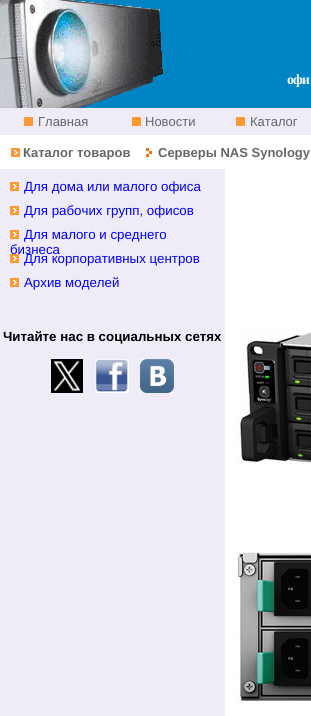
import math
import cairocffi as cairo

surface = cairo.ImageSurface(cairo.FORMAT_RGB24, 311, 716)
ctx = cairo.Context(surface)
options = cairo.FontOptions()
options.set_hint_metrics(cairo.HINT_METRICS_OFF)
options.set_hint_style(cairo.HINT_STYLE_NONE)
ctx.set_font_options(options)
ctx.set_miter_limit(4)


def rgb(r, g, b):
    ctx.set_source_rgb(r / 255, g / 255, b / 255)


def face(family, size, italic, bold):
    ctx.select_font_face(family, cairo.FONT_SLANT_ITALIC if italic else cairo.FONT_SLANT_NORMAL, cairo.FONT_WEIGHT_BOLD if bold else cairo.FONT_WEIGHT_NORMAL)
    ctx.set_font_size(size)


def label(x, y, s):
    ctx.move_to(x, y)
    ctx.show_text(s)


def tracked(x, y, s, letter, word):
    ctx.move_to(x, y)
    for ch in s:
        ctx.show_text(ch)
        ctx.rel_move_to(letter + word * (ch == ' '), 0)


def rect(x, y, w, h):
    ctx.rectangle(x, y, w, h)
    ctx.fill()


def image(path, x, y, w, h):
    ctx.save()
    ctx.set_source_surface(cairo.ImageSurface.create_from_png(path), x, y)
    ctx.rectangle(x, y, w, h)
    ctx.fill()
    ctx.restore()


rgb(255, 255, 255)
ctx.paint()
rgb(0, 132, 196)
rect(75, 0, 236, 108)
image('image0.png', 0, 0, 163, 108)
face('Liberation Serif', 14, 0, 1)
rgb(255, 255, 255)
tracked(287, 84, 'офи', -1, 0)
rgb(239, 235, 247)
rect(0, 108, 311, 27)
face('Liberation Sans', 13, 0, 0)
rgb(102, 102, 102)
label(38, 126, 'Главная')
rgb(255, 153, 51)
rect(24, 117, 9, 9)
rgb(102, 102, 102)
label(145, 126, 'Новости')
rgb(255, 153, 51)
rect(132, 117, 9, 9)
rgb(102, 102, 102)
label(250, 126, 'Каталог')
rgb(255, 153, 51)
rect(236, 117, 9, 9)
image('image1.png', 11, 148, 9, 9)
face('Liberation Sans', 13, 0, 1)
rgb(102, 102, 102)
label(23, 157, 'Каталог товаров')
image('image2.png', 146, 148, 6, 9)
label(158, 157, 'Серверы NAS Synology')
rgb(239, 235, 247)
rect(0, 169, 225, 547)
image('image1.png', 10, 182, 9, 9)
face('Liberation Sans', 13.3, 0, 0)
rgb(0, 0, 255)
label(24, 191, 'Для дома или малого офиса')
image('image1.png', 10, 206, 9, 9)
label(24, 215, 'Для рабочих групп, офисов')
image('image1.png', 10, 230, 9, 9)
label(24, 239, 'Для малого и среднего')
label(10, 254, 'бизнеса')
image('image1.png', 10, 254, 9, 9)
label(24, 263, 'Для корпоративных центров')
image('image1.png', 10, 278, 9, 9)
label(24, 287, 'Архив моделей')
face('Liberation Sans', 13.3, 0, 1)
rgb(0, 0, 0)
label(3, 341, 'Читайте нас в социальных сетях')
image('image3.png', 51, 359, 32, 34)
image('image4.png', 95, 359, 34, 34)
image('image5.png', 140, 359, 34, 34)
image('image6.png', 236, 328, 75, 136)
image('image7.png', 236, 552, 75, 151)
surface.write_to_png('render.png')
